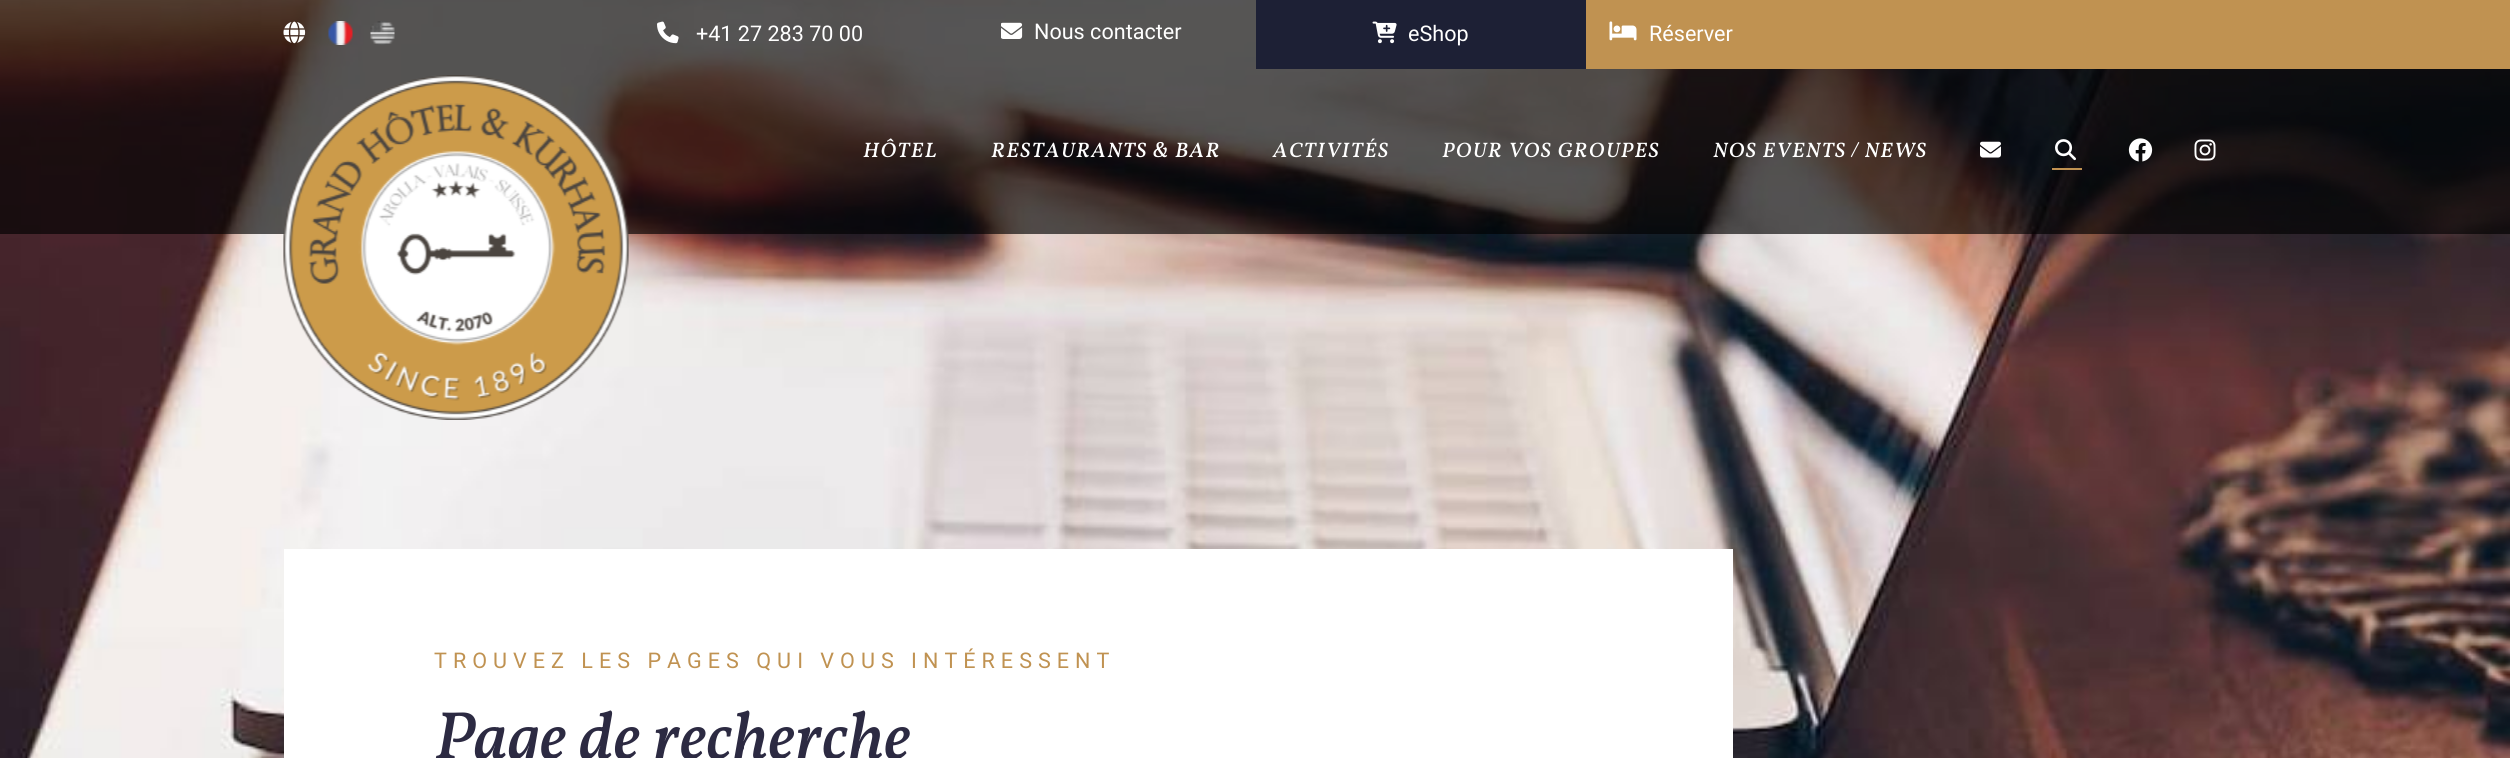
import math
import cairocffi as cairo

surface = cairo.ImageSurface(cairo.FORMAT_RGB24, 2510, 758)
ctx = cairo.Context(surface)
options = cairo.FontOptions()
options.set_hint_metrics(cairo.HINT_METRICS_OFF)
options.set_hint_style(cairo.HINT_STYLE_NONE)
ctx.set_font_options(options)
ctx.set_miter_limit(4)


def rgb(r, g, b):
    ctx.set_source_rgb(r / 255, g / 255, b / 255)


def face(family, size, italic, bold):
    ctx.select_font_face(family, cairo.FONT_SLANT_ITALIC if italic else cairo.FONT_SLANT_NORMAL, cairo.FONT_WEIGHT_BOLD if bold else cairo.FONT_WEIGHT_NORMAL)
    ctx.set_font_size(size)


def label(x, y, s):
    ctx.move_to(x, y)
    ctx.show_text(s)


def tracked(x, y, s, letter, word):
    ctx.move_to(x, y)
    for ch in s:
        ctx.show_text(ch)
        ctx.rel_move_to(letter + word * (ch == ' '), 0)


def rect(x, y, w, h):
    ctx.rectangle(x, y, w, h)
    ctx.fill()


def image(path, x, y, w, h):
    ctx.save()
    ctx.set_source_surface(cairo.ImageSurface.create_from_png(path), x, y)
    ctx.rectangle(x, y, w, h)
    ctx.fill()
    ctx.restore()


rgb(255, 255, 255)
ctx.paint()
image('image12.png', 0, 0, 2510, 758)
ctx.set_source_rgba(0, 0, 0, 0.65)
rect(0, 0, 2510, 234)
image('image0.png', 283, 21, 23, 23)
image('image1.png', 328, 21, 25, 24)
image('image2.png', 370, 21, 25, 24)
image('image3.png', 657, 21, 22, 23)
face('Roboto', 21.6, 0, 0)
rgb(255, 255, 255)
label(696, 41, '+41 27 283 70 00')
image('image4.png', 1001, 22, 22, 17)
label(1034, 39, 'Nous contacter')
rgb(29, 32, 53)
rect(1256, 0, 330, 69)
image('image5.png', 1372, 21, 25, 23)
rgb(255, 255, 255)
label(1408, 41, 'eShop')
rgb(192, 146, 81)
rect(1586, 0, 924, 69)
image('image6.png', 1609, 21, 28, 20)
rgb(255, 255, 255)
label(1649, 41, 'Réserver')
image('image7.png', 283, 75, 346, 345)
face('Vollkorn Medium', 21, 1, 0)
tracked(863, 157, 'HÔTEL', 1.5, 0)
tracked(991, 157, 'RESTAURANTS & BAR', 1.5, 0)
tracked(1273, 157, 'ACTIVITÉS', 1.5, 0)
tracked(1442, 157, 'POUR VOS GROUPES', 1.5, 0)
tracked(1713, 157, 'NOS EVENTS / NEWS', 1.5, 0)
image('image8.png', 1980, 141, 21, 17)
image('image9.png', 2055, 139, 21, 22)
rgb(192, 146, 81)
rect(2052, 168, 30, 2)
image('image10.png', 2128, 138, 25, 24)
image('image11.png', 2194, 139, 22, 22)
rgb(255, 255, 255)
rect(284, 549, 1449, 209)
face('Roboto', 21.6, 0, 0)
rgb(192, 146, 81)
tracked(434, 668, 'TROUVEZ LES PAGES QUI VOUS INTÉRESSENT', 6, 0)
face('Vollkorn Medium', 68.5, 1, 0)
rgb(44, 42, 66)
label(434, 759, 'Page de recherche')
surface.write_to_png('render.png')
